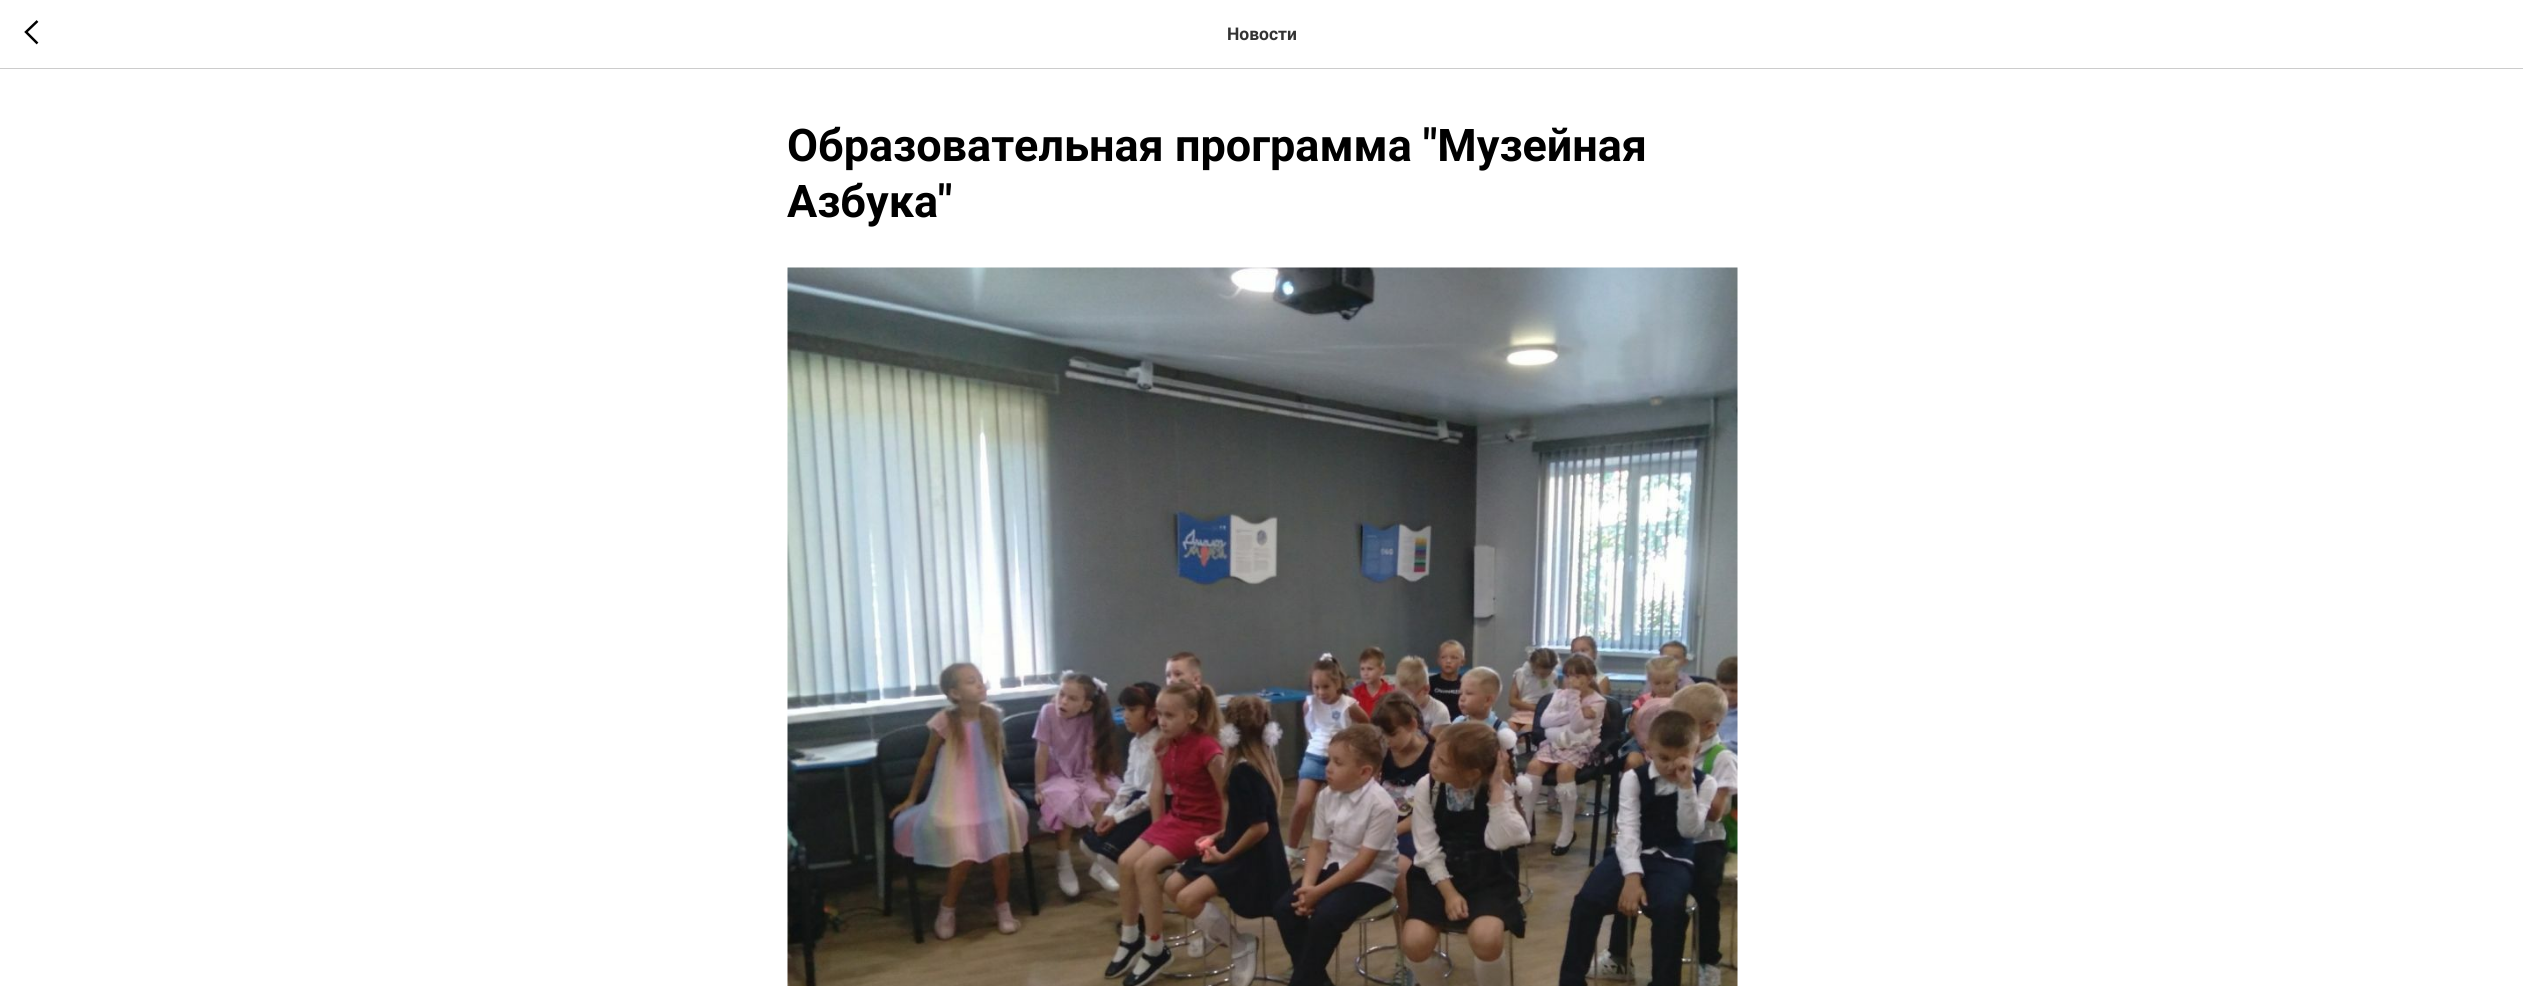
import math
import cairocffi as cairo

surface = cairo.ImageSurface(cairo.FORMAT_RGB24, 2523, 986)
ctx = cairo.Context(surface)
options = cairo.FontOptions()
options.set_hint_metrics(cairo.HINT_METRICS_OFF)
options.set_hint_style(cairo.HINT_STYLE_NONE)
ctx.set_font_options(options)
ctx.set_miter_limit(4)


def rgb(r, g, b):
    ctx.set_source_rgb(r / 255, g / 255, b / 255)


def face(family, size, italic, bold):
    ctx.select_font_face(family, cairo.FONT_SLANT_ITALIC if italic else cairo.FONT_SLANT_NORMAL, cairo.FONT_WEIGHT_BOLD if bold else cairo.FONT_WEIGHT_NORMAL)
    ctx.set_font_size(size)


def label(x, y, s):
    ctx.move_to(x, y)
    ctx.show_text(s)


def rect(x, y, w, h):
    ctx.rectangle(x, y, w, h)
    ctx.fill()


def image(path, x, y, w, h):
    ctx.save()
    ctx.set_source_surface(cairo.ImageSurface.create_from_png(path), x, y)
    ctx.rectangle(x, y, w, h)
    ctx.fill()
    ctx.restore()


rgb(255, 255, 255)
ctx.paint()
rgb(204, 204, 204)
rect(0, 68, 2523, 1)
ctx.new_path()
ctx.move_to(37.5, 43.5)
ctx.line_to(26, 32)
ctx.line_to(37.5, 21)
rgb(0, 0, 0)
ctx.set_line_width(2.5)
ctx.stroke()
face('Roboto', 17.5, 0, 1)
rgb(51, 51, 51)
label(1227, 40, 'Новости')
face('Roboto', 45, 0, 1)
rgb(0, 0, 0)
label(787, 161, 'Образовательная программа "Музейная')
label(787, 217, 'Азбука"')
image('image0.png', 787, 267, 951, 719)
surface.write_to_png('render.png')
